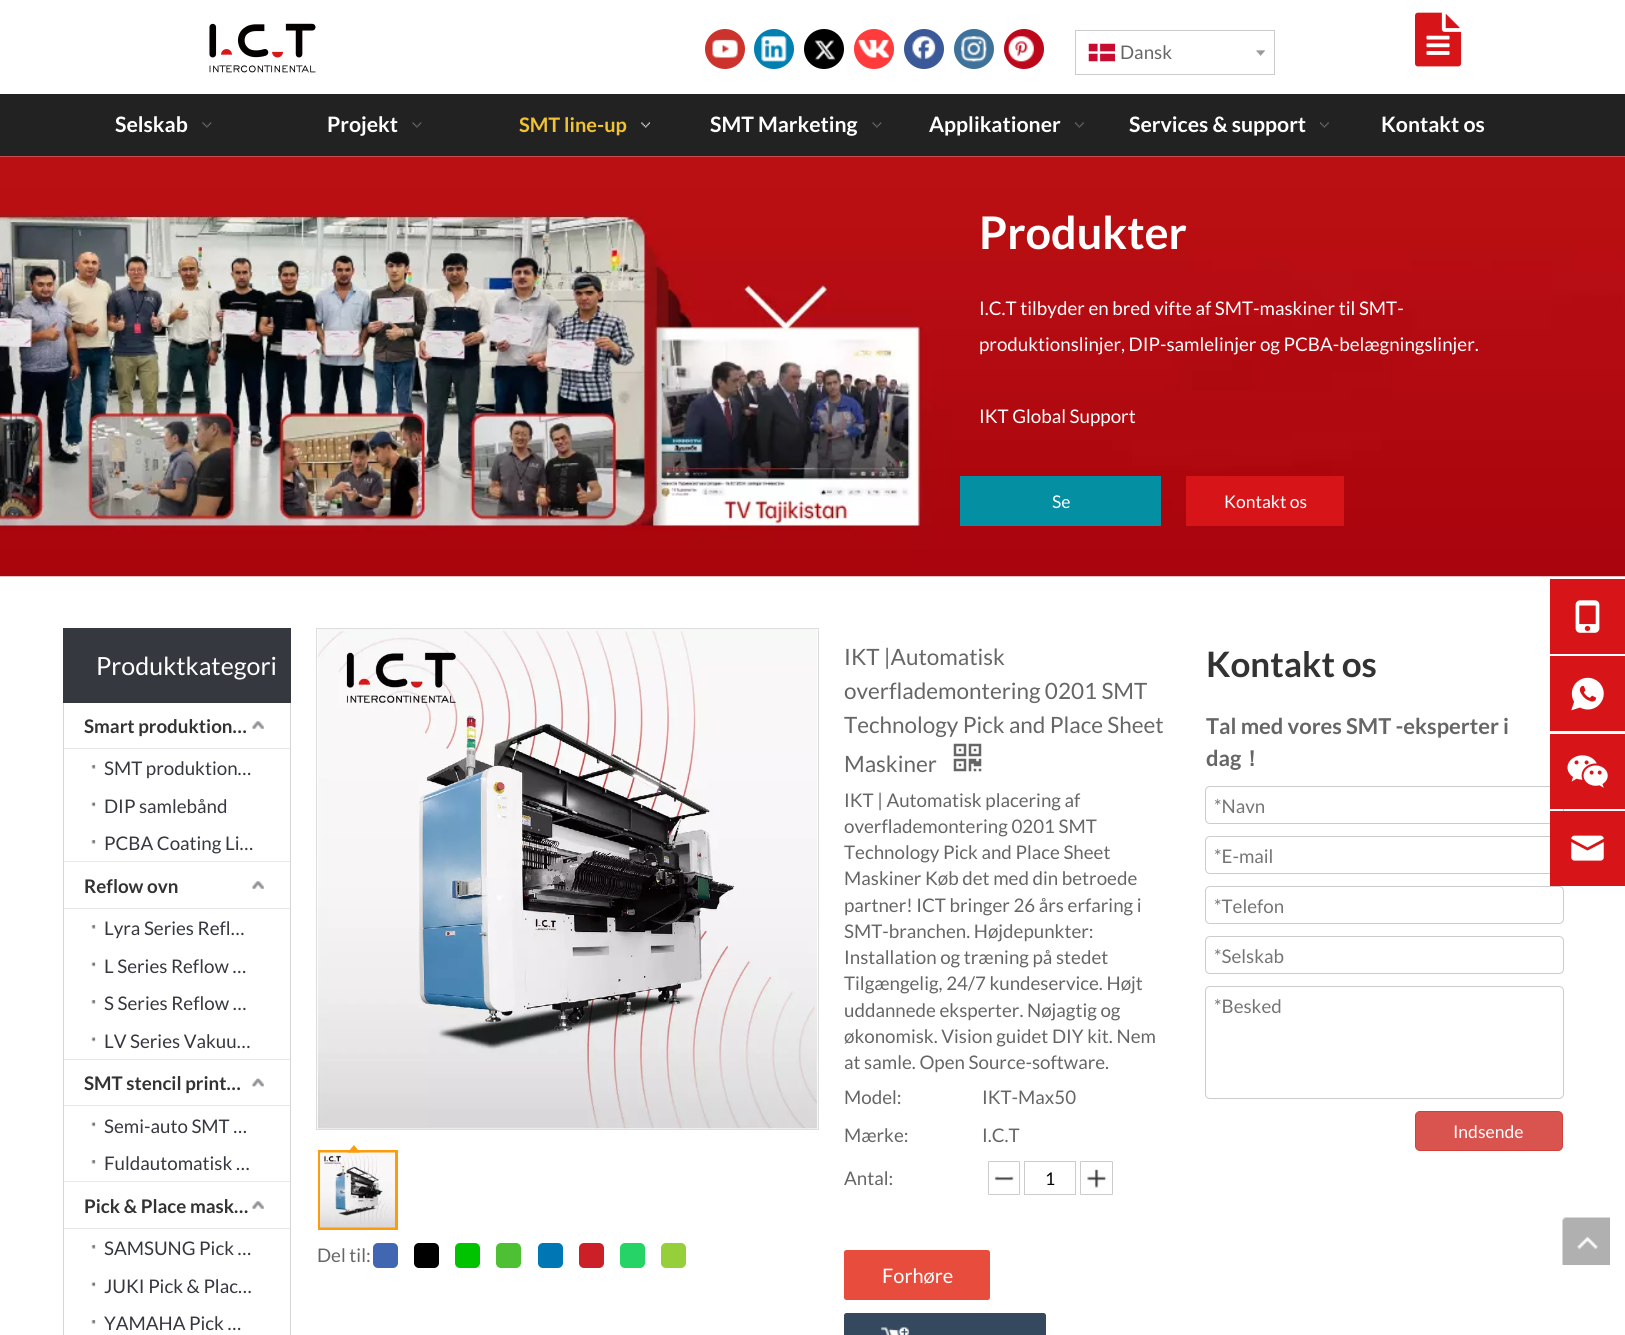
import math
import cairocffi as cairo

surface = cairo.ImageSurface(cairo.FORMAT_RGB24, 1625, 1335)
ctx = cairo.Context(surface)
options = cairo.FontOptions()
options.set_hint_metrics(cairo.HINT_METRICS_OFF)
options.set_hint_style(cairo.HINT_STYLE_NONE)
ctx.set_font_options(options)
ctx.set_miter_limit(4)


def rgb(r, g, b):
    ctx.set_source_rgb(r / 255, g / 255, b / 255)


def face(family, size, italic, bold):
    ctx.select_font_face(family, cairo.FONT_SLANT_ITALIC if italic else cairo.FONT_SLANT_NORMAL, cairo.FONT_WEIGHT_BOLD if bold else cairo.FONT_WEIGHT_NORMAL)
    ctx.set_font_size(size)


def label(x, y, s):
    ctx.move_to(x, y)
    ctx.show_text(s)


def rect(x, y, w, h):
    ctx.rectangle(x, y, w, h)
    ctx.fill()


def rrect(x, y, w, h, r):
    ctx.new_sub_path()
    for i, (u, v) in enumerate([(x + w - r, y + h - r), (x + r, y + h - r), (x + r, y + r), (x + w - r, y + r)]):
        ctx.arc(u, v, r, i * math.pi / 2, (i + 1) * math.pi / 2)
    ctx.close_path()


def image(path, x, y, w, h):
    ctx.save()
    ctx.set_source_surface(cairo.ImageSurface.create_from_png(path), x, y)
    ctx.rectangle(x, y, w, h)
    ctx.fill()
    ctx.restore()


rgb(255, 255, 255)
ctx.paint()
image('image0.png', 209, 23, 107, 50)
rgb(205, 51, 45)
ctx.arc(725, 49, 20, 0, 2 * math.pi)
ctx.fill()
image('image1.png', 712, 39, 26, 19)
rgb(0, 127, 177)
ctx.arc(774, 49, 20, 0, 2 * math.pi)
ctx.fill()
image('image2.png', 761, 36, 26, 26)
rgb(0, 0, 0)
ctx.arc(824, 49, 20, 0, 2 * math.pi)
ctx.fill()
image('image3.png', 814, 40, 22, 21)
rgb(255, 59, 59)
ctx.arc(874, 49, 20, 0, 2 * math.pi)
ctx.fill()
image('image4.png', 858, 39, 31, 19)
rgb(59, 89, 152)
ctx.arc(924, 49, 20, 0, 2 * math.pi)
ctx.fill()
image('image5.png', 912, 36, 24, 23)
rgb(63, 114, 155)
ctx.arc(974, 49, 20, 0, 2 * math.pi)
ctx.fill()
image('image6.png', 961, 36, 26, 26)
rgb(189, 8, 28)
ctx.arc(1024, 49, 20, 0, 2 * math.pi)
ctx.fill()
image('image7.png', 1008, 36, 26, 26)
ctx.rectangle(1075.5, 30.5, 199, 44)
rgb(204, 204, 204)
ctx.set_line_width(1)
ctx.stroke()
image('image8.png', 1088, 43, 27, 19)
face('Lato', 18.75, 0, 0)
rgb(102, 102, 102)
label(1120, 59, 'Dansk')
image('image9.png', 1256, 50, 9, 6)
image('image10.png', 1415, 12, 47, 55)
rgb(34, 34, 34)
rect(0, 94, 1625, 62)
face('Lato', 21.25, 0, 1)
rgb(255, 255, 255)
label(115, 132, 'Selskab')
image('image11.png', 202, 122, 10, 6)
label(327, 132, 'Projekt')
image('image12.png', 412, 122, 10, 6)
face('Lato', 20, 0, 1)
rgb(241, 194, 50)
label(519, 132, 'SMT line-up')
image('image13.png', 641, 122, 9, 6)
face('Lato', 21.25, 0, 1)
rgb(255, 255, 255)
label(710, 132, 'SMT Marketing')
image('image11.png', 872, 122, 10, 6)
label(929, 132, 'Applikationer')
image('image14.png', 1075, 122, 9, 6)
label(1129, 132, 'Services & support')
image('image14.png', 1320, 122, 9, 6)
label(1381, 132, 'Kontakt os')
image('image15.png', 0, 156, 1625, 421)
face('Lato', 45, 0, 1)
label(979, 249, 'Produkter')
face('Lato', 18.75, 0, 0)
label(979, 315, 'I.C.T tilbyder en bred vifte af SMT-maskiner til SMT-')
label(979, 351, 'produktionslinjer, DIP-samlelinjer og PCBA-belægningslinjer.')
label(979, 423, 'IKT Global Support')
rgb(4, 143, 162)
rect(960, 476, 201, 50)
face('Lato', 17.5, 0, 0)
rgb(255, 255, 255)
label(1052, 508, 'Se')
rgb(215, 21, 24)
rect(1186, 476, 158, 50)
rgb(255, 255, 255)
label(1224, 508, 'Kontakt os')
rgb(53, 56, 63)
rect(63, 628, 228, 75)
face('Lato', 25, 0, 0)
rgb(255, 255, 255)
label(96, 675, 'Produktkategori')
rgb(214, 214, 214)
rect(290, 703, 1, 632)
rect(63, 703, 1, 632)
rgb(231, 231, 231)
rect(64, 748, 226, 1)
face('Lato', 18.75, 0, 1)
rgb(51, 51, 51)
label(84, 733, 'Smart produktion…')
image('image16.png', 252, 721, 12, 8)
image('image17.png', 91, 765, 5, 4)
face('Lato', 18.75, 0, 0)
rgb(53, 56, 63)
label(104, 775, 'SMT produktion…')
image('image18.png', 91, 802, 5, 5)
label(104, 813, 'DIP samlebånd')
image('image17.png', 91, 840, 5, 4)
label(104, 850, 'PCBA Coating Li…')
rgb(231, 231, 231)
rect(64, 861, 226, 1)
rect(64, 908, 226, 1)
face('Lato', 18.75, 0, 1)
rgb(51, 51, 51)
label(84, 893, 'Reflow ovn')
image('image16.png', 252, 881, 12, 8)
image('image17.png', 91, 925, 5, 4)
face('Lato', 18.75, 0, 0)
rgb(53, 56, 63)
label(104, 935, 'Lyra Series Refl…')
image('image18.png', 91, 962, 5, 5)
label(104, 973, 'L Series Reflow …')
image('image17.png', 91, 1000, 5, 4)
label(104, 1010, 'S Series Reflow …')
image('image18.png', 91, 1037, 5, 5)
label(104, 1048, 'LV Series Vakuu…')
rgb(231, 231, 231)
rect(64, 1059, 226, 1)
rect(64, 1105, 226, 1)
face('Lato', 18.75, 0, 1)
rgb(51, 51, 51)
label(84, 1090, 'SMT stencil print…')
image('image19.png', 252, 1078, 12, 9)
image('image18.png', 91, 1122, 5, 5)
face('Lato', 18.75, 0, 0)
rgb(53, 56, 63)
label(104, 1133, 'Semi-auto SMT …')
image('image17.png', 91, 1160, 5, 4)
label(104, 1170, 'Fuldautomatisk …')
rgb(231, 231, 231)
rect(64, 1181, 226, 1)
rect(64, 1228, 226, 1)
face('Lato', 18.75, 0, 1)
rgb(51, 51, 51)
label(84, 1213, 'Pick & Place mask…')
image('image16.png', 252, 1201, 12, 8)
image('image17.png', 91, 1245, 5, 4)
face('Lato', 18.75, 0, 0)
rgb(53, 56, 63)
label(104, 1255, 'SAMSUNG Pick …')
image('image18.png', 91, 1282, 5, 5)
label(104, 1293, 'JUKI Pick & Plac…')
image('image17.png', 91, 1320, 5, 4)
label(104, 1330, 'YAMAHA Pick …')
ctx.rectangle(316.5, 628.5, 502, 501)
rgb(221, 221, 221)
ctx.stroke()
image('image20.png', 317, 629, 501, 500)
ctx.rectangle(319.5, 1151.5, 77, 77)
rgb(254, 155, 10)
ctx.set_line_width(3)
ctx.stroke()
image('image21.png', 320, 1152, 75, 76)
ctx.new_path()
ctx.move_to(360, 1152.5)
ctx.line_to(347.5, 1152.5)
ctx.line_to(354, 1145)
ctx.close_path()
ctx.fill()
rgb(102, 102, 102)
label(317, 1262, 'Del til:')
rgb(66, 103, 178)
rrect(373, 1243, 25, 25, 5)
ctx.fill()
rgb(0, 0, 0)
rrect(414, 1243, 25, 25, 5)
ctx.fill()
rgb(0, 195, 0)
rrect(455, 1243, 25, 25, 5)
ctx.fill()
rgb(78, 192, 52)
rrect(496, 1243, 25, 25, 5)
ctx.fill()
rgb(0, 119, 181)
rrect(538, 1243, 25, 25, 5)
ctx.fill()
rgb(203, 32, 39)
rrect(579, 1243, 25, 25, 5)
ctx.fill()
rgb(37, 211, 102)
rrect(620, 1243, 25, 25, 5)
ctx.fill()
rgb(149, 208, 58)
rrect(661, 1243, 25, 25, 5)
ctx.fill()
face('Lato', 22.5, 0, 0)
rgb(102, 102, 102)
label(844, 665, 'IKT |Automatisk')
label(844, 699, 'overflademontering 0201 SMT')
label(844, 733, 'Technology Pick and Place Sheet')
label(844, 772, 'Maskiner')
image('image22.png', 953, 743, 29, 29)
face('Lato', 18.75, 0, 0)
label(844, 807, 'IKT | Automatisk placering af')
label(844, 833, 'overflademontering 0201 SMT')
label(844, 859, 'Technology Pick and Place Sheet')
label(844, 885, 'Maskiner Køb det med din betroede')
label(844, 912, 'partner! ICT bringer 26 års erfaring i')
label(844, 938, 'SMT-branchen. Højdepunkter:')
label(844, 964, 'Installation og træning på stedet')
label(844, 990, 'Tilgængelig, 24/7 kundeservice. Højt')
label(844, 1017, 'uddannede eksperter. Nøjagtig og')
label(844, 1043, 'økonomisk. Vision guidet DIY kit. Nem')
label(844, 1069, 'at samle. Open Source-software.')
label(844, 1104, 'Model:')
label(982, 1104, 'IKT-Max50')
label(844, 1142, 'Mærke:')
label(982, 1142, 'I.C.T')
label(844, 1185, 'Antal:')
image('image23.png', 994, 1176, 20, 5)
rrect(988.5, 1161.5, 31, 33, 0.5)
rgb(204, 204, 204)
ctx.set_line_width(1)
ctx.stroke()
ctx.rectangle(1024.5, 1161.5, 51, 33)
ctx.stroke()
face('Lato', 17.5, 0, 0)
rgb(0, 0, 0)
label(1045, 1185, '1')
image('image24.png', 1087, 1169, 20, 19)
rrect(1080.5, 1161.5, 32, 33, 0.5)
rgb(204, 204, 204)
ctx.stroke()
rgb(231, 76, 60)
rrect(844, 1250, 146, 50, 2.5)
ctx.fill()
face('Lato', 20, 0, 0)
rgb(255, 255, 255)
label(882, 1283, 'Forhøre')
rgb(52, 73, 94)
rrect(844, 1313, 202, 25, 2.5)
ctx.fill()
image('image25.png', 881, 1327, 28, 8)
face('Lato', 35, 0, 1)
rgb(51, 51, 51)
label(1206, 677, 'Kontakt os')
face('Lato', 21.9, 0, 1)
rgb(102, 102, 102)
label(1206, 734, 'Tal med vores SMT -eksperter i')
label(1206, 766, 'dag')
face('WenQuanYi Zen Hei', 21.9, 0, 1)
label(1241, 766, '！')
rrect(1205.5, 786.5, 358, 37, 4.5)
rgb(204, 204, 204)
ctx.stroke()
face('Lato', 18.75, 0, 0)
rgb(117, 117, 117)
label(1214, 813, '*Navn')
rrect(1205.5, 836.5, 358, 37, 4.5)
rgb(204, 204, 204)
ctx.stroke()
rgb(117, 117, 117)
label(1214, 863, '*E-mail')
rrect(1205.5, 886.5, 358, 37, 4.5)
rgb(204, 204, 204)
ctx.stroke()
rgb(117, 117, 117)
label(1214, 913, '*Telefon')
rrect(1205.5, 936.5, 358, 37, 4.5)
rgb(204, 204, 204)
ctx.stroke()
rgb(117, 117, 117)
label(1214, 963, '*Selskab')
rrect(1205.5, 986.5, 358, 112, 4.5)
rgb(204, 204, 204)
ctx.stroke()
rgb(117, 117, 117)
label(1214, 1013, '*Besked')
rgb(217, 83, 79)
rrect(1415.5, 1111.5, 147, 39, 4.5)
ctx.fill_preserve()
rgb(212, 63, 58)
ctx.stroke()
face('Lato', 17.5, 0, 0)
rgb(255, 255, 255)
label(1453, 1138, 'Indsende')
rgb(215, 21, 24)
rect(1550, 579, 75, 75)
image('image26.png', 1575, 600, 25, 33)
rect(1550, 656, 75, 75)
image('image27.png', 1571, 677, 33, 34)
rect(1550, 734, 75, 75)
image('image28.png', 1567, 755, 41, 33)
rect(1550, 811, 75, 75)
image('image29.png', 1571, 835, 33, 26)
image('image30.png', 1562, 1217, 48, 48)
surface.write_to_png('render.png')
